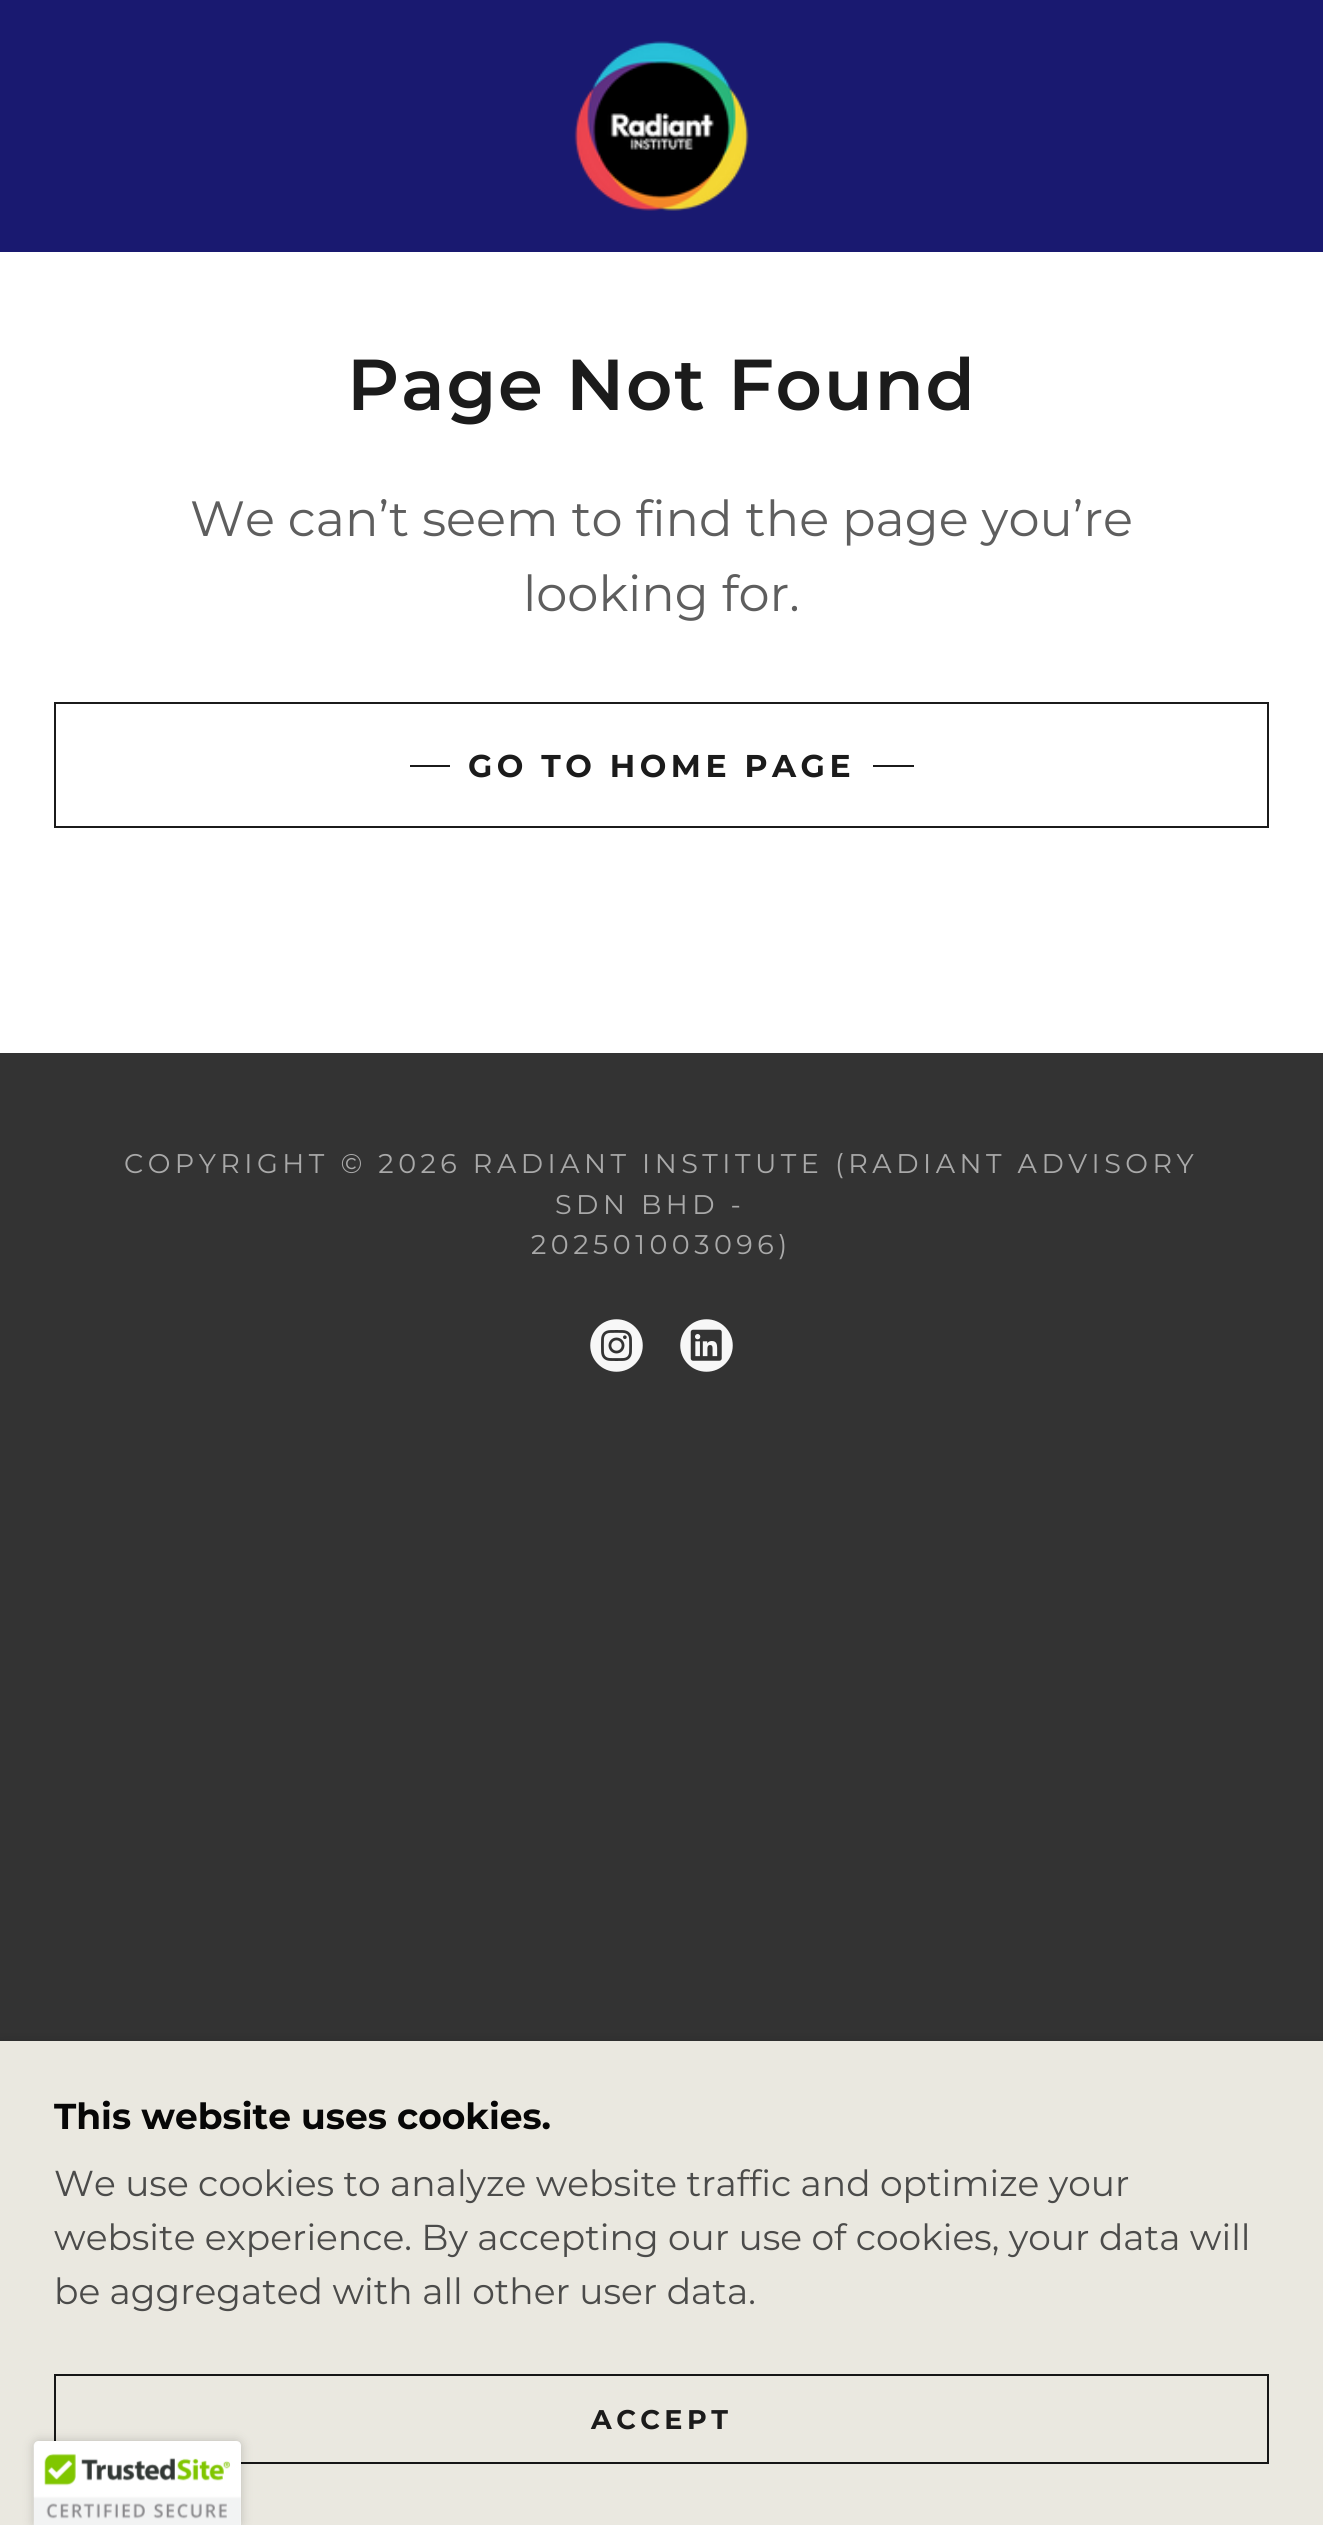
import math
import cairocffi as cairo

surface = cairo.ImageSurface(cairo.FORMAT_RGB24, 1323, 2525)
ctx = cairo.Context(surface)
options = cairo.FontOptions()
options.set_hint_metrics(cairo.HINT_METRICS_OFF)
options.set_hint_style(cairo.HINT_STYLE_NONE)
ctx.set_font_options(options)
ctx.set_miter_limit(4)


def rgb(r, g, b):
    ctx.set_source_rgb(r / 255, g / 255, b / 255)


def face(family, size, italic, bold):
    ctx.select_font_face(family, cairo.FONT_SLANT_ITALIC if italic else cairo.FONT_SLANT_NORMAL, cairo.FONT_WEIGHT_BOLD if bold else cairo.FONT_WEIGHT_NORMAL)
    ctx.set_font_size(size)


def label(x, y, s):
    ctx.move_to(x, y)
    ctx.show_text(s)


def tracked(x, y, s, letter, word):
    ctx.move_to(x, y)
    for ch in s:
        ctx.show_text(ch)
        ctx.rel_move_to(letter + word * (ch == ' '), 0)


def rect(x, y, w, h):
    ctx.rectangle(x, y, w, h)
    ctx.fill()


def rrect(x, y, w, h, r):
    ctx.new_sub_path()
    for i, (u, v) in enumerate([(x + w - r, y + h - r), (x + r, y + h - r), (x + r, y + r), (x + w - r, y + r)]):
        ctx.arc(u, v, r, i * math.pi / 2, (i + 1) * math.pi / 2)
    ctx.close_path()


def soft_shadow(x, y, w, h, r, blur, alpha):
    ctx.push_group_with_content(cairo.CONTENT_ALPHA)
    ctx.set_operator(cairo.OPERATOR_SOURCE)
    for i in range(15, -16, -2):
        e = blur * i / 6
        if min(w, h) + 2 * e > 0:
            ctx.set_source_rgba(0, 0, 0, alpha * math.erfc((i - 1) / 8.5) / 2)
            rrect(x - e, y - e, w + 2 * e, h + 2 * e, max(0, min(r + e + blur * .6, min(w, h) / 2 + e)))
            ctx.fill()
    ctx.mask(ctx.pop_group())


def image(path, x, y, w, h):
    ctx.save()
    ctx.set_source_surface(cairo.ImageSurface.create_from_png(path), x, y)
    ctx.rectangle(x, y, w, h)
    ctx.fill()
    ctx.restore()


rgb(51, 51, 51)
ctx.paint()
rgb(25, 25, 112)
rect(0, 0, 1323, 252)
image('image0.png', 574, 41, 175, 170)
rgb(255, 255, 255)
rect(0, 252, 1323, 801)
face('Montserrat SemiBold', 72, 0, 0)
rgb(27, 27, 27)
tracked(347, 410, 'Page Not Found', 1.7, 0)
face('Montserrat', 49.5, 0, 0)
rgb(94, 94, 94)
label(190, 536, 'We can’t seem to find the page you’re')
label(523, 611, 'looking for.')
ctx.rectangle(55, 703, 1213, 124)
rgb(27, 27, 27)
ctx.stroke()
rect(410, 765, 40, 2)
face('Montserrat', 31.5, 0, 1)
tracked(468, 777, 'GO TO HOME PAGE', 4.5, 0)
rect(873, 765, 41, 2)
face('Montserrat', 27, 0, 0)
rgb(169, 169, 169)
tracked(124, 1173, 'COPYRIGHT © 2026 RADIANT INSTITUTE (RADIANT ADVISORY', 4.5, 0)
tracked(555, 1214, 'SDN BHD -', 4.5, 0)
tracked(531, 1254, '202501003096)', 4.5, 0)
image('image1.png', 590, 1319, 53, 53)
image('image2.png', 680, 1319, 53, 53)
rgb(0, 0, 0)
soft_shadow(0, 2045, 1323, 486, 0, 7, 0.3)
rgb(234, 232, 224)
rect(0, 2041, 1323, 484)
face('Montserrat', 36, 0, 1)
rgb(7, 7, 7)
label(54, 2129, 'This website uses cookies.')
face('Montserrat', 36, 0, 0)
rgb(75, 75, 74)
label(54, 2196, 'We use cookies to analyze website traffic and optimize your')
label(54, 2250, 'website experience. By accepting our use of cookies, your data will')
label(54, 2304, 'be aggregated with all other user data.')
ctx.rectangle(55, 2375, 1213, 88)
rgb(22, 22, 22)
ctx.stroke()
face('Montserrat', 27, 0, 1)
rgb(27, 27, 27)
tracked(591, 2429, 'ACCEPT', 4.5, 0)
rgb(0, 0, 0)
soft_shadow(34, 2441, 207, 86, 5, 5.5, 0.2)
rgb(255, 255, 255)
ctx.new_path()
ctx.move_to(39, 2441)
ctx.line_to(236, 2441)
ctx.curve_to(239, 2441, 241, 2443, 241, 2446)
ctx.line_to(241, 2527)
ctx.line_to(34, 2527)
ctx.line_to(34, 2446)
ctx.curve_to(34, 2443, 36, 2441, 39, 2441)
ctx.close_path()
ctx.fill()
image('image3.png', 33, 2441, 208, 84)
surface.write_to_png('render.png')
